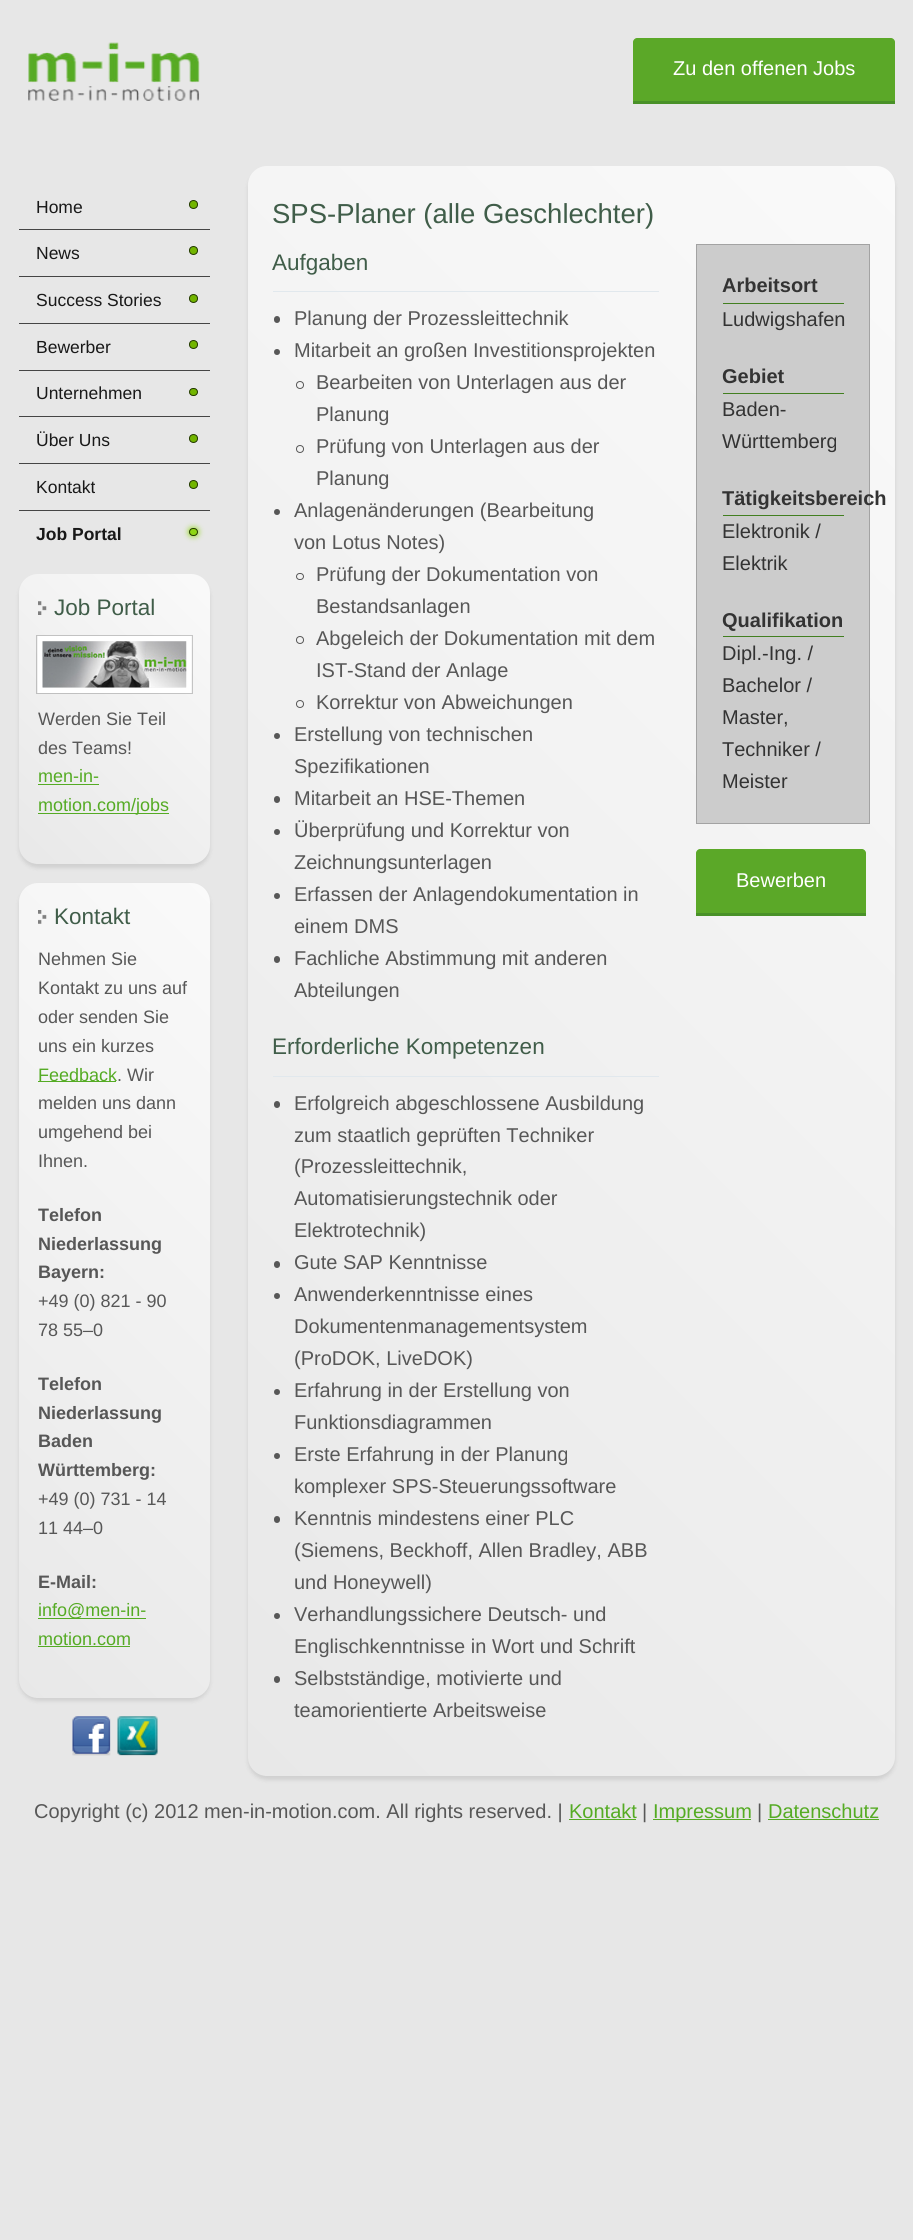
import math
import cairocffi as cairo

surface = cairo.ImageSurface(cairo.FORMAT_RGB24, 913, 2240)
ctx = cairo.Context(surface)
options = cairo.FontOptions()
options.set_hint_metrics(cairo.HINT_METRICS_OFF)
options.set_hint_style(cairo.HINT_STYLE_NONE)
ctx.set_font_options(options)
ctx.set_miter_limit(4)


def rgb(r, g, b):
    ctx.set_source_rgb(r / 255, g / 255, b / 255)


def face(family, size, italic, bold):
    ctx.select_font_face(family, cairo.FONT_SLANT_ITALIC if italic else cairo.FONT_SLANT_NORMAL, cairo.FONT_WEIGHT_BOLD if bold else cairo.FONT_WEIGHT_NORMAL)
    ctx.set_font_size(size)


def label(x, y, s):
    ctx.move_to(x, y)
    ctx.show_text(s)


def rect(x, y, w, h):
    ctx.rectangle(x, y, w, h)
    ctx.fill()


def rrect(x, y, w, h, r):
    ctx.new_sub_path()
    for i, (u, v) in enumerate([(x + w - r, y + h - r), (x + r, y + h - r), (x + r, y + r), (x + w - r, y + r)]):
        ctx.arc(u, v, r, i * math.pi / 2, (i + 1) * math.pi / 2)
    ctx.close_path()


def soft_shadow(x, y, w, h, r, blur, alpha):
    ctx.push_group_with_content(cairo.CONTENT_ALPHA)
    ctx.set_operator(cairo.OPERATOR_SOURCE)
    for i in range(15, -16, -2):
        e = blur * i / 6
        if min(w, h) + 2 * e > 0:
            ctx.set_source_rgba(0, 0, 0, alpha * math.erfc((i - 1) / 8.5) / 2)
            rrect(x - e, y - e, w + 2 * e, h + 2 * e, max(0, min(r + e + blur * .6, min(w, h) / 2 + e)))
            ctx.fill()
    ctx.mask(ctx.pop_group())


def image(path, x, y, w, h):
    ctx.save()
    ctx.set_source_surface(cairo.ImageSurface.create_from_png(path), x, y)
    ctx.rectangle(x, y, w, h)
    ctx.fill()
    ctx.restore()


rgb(231, 231, 231)
ctx.paint()
image('image0.png', 28, 42, 172, 59)
rgb(91, 168, 40)
ctx.new_path()
ctx.move_to(637, 38)
ctx.line_to(891, 38)
ctx.curve_to(893, 38, 895, 40, 895, 42)
ctx.line_to(895, 101)
ctx.line_to(633, 101)
ctx.line_to(633, 42)
ctx.curve_to(633, 40, 635, 38, 637, 38)
ctx.close_path()
ctx.fill()
rgb(73, 145, 40)
rect(633, 101, 262, 3)
face('Liberation Sans', 20, 0, 0)
rgb(255, 255, 255)
label(673, 75, 'Zu den offenen Jobs')
rgb(69, 69, 69)
rect(19, 229, 191, 1)
face('Liberation Sans', 17.5, 0, 0)
rgb(25, 25, 25)
label(36, 213, 'Home')
rgb(114, 181, 0)
ctx.new_path()
ctx.arc(193.5, 204.5, 4, 0, 2 * math.pi)
ctx.fill_preserve()
rgb(34, 56, 0)
ctx.set_line_width(1)
ctx.stroke()
rgb(69, 69, 69)
rect(19, 276, 191, 1)
rgb(25, 25, 25)
label(36, 259, 'News')
rgb(114, 181, 0)
ctx.new_path()
ctx.arc(193.5, 250.5, 4, 0, 2 * math.pi)
ctx.fill_preserve()
rgb(34, 56, 0)
ctx.stroke()
rgb(69, 69, 69)
rect(19, 323, 191, 1)
rgb(25, 25, 25)
label(36, 306, 'Success Stories')
rgb(114, 181, 0)
ctx.new_path()
ctx.arc(193.5, 298.5, 4, 0, 2 * math.pi)
ctx.fill_preserve()
rgb(34, 56, 0)
ctx.stroke()
rgb(69, 69, 69)
rect(19, 370, 191, 1)
rgb(25, 25, 25)
label(36, 353, 'Bewerber')
rgb(114, 181, 0)
ctx.new_path()
ctx.arc(193.5, 344.5, 4, 0, 2 * math.pi)
ctx.fill_preserve()
rgb(34, 56, 0)
ctx.stroke()
rgb(69, 69, 69)
rect(19, 416, 191, 1)
rgb(25, 25, 25)
label(36, 399, 'Unternehmen')
rgb(114, 181, 0)
rrect(189.5, 388.5, 8, 7, 3.5)
ctx.fill_preserve()
rgb(34, 56, 0)
ctx.stroke()
rgb(69, 69, 69)
rect(19, 463, 191, 1)
rgb(25, 25, 25)
label(36, 446, 'Über Uns')
rgb(114, 181, 0)
ctx.new_path()
ctx.arc(193.5, 438.5, 4, 0, 2 * math.pi)
ctx.fill_preserve()
rgb(34, 56, 0)
ctx.stroke()
rgb(69, 69, 69)
rect(19, 510, 191, 1)
rgb(25, 25, 25)
label(36, 493, 'Kontakt')
rgb(114, 181, 0)
ctx.new_path()
ctx.arc(193.5, 484.5, 4, 0, 2 * math.pi)
ctx.fill_preserve()
rgb(34, 56, 0)
ctx.stroke()
face('Liberation Sans', 17.5, 0, 1)
rgb(25, 25, 25)
label(36, 540, 'Job Portal')
rgb(143, 214, 20)
soft_shadow(189, 528, 9, 8, 4, 3, 1)
rgb(142, 214, 20)
rrect(189.5, 528.5, 8, 7, 3.5)
ctx.fill_preserve()
rgb(34, 56, 0)
ctx.stroke()
rgb(0, 0, 0)
soft_shadow(19, 578, 191, 290, 19, 2, 0.1)
gradient = cairo.LinearGradient(-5.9, 839, 235, 598)
gradient.add_color_stop_rgba(0, 0.91, 0.91, 0.91, 1)
gradient.add_color_stop_rgba(1, 0.98, 0.98, 0.98, 1)
ctx.set_source(gradient)
rrect(19, 574, 191, 290, 19)
ctx.fill()
image('image1.png', 38, 601, 9, 14)
face('Liberation Sans', 22.5, 0, 0)
rgb(64, 93, 73)
label(54, 615, 'Job Portal')
ctx.rectangle(36.5, 635.5, 156, 58)
ctx.set_source_rgba(0, 0, 0, 0.2)
ctx.stroke()
ctx.rectangle(40.5, 638.5, 148, 52)
rgb(255, 255, 255)
ctx.set_line_width(5)
ctx.stroke()
image('image2.png', 42, 641, 145, 47)
face('Liberation Sans', 18, 0, 0)
rgb(87, 87, 87)
label(38, 725, 'Werden Sie Teil')
label(38, 754, 'des Teams!')
rgb(85, 171, 36)
label(38, 782, 'men-in-')
rect(38, 784, 61, 1)
rect(38, 813, 131, 1)
label(38, 811, 'motion.com/jobs')
rgb(0, 0, 0)
soft_shadow(19, 886, 191, 815, 19, 2, 0.1)
gradient = cairo.LinearGradient(-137, 1542, 366, 1038)
gradient.add_color_stop_rgba(0, 0.91, 0.91, 0.91, 1)
gradient.add_color_stop_rgba(1, 0.98, 0.98, 0.98, 1)
ctx.set_source(gradient)
rrect(19, 883, 191, 815, 19)
ctx.fill()
image('image3.png', 38, 910, 9, 14)
face('Liberation Sans', 22.5, 0, 0)
rgb(64, 93, 73)
label(54, 924, 'Kontakt')
face('Liberation Sans', 18, 0, 0)
rgb(87, 87, 87)
label(38, 965, 'Nehmen Sie')
label(38, 994, 'Kontakt zu uns auf')
label(38, 1023, 'oder senden Sie')
label(38, 1052, 'uns ein kurzes')
rgb(85, 171, 36)
rect(38, 1081, 78, 1)
label(38, 1081, 'Feedback')
rgb(87, 87, 87)
label(117, 1081, '. Wir')
label(38, 1109, 'melden uns dann')
label(38, 1138, 'umgehend bei')
label(38, 1167, 'Ihnen.')
face('Liberation Sans', 18, 0, 1)
label(38, 1221, 'Telefon')
label(38, 1250, 'Niederlassung')
label(38, 1278, 'Bayern:')
face('Liberation Sans', 18, 0, 0)
label(38, 1307, '+49 (0) 821 - 90')
label(38, 1336, '78 55–0')
face('Liberation Sans', 18, 0, 1)
label(38, 1390, 'Telefon')
label(38, 1419, 'Niederlassung')
label(38, 1447, 'Baden')
label(38, 1476, 'Württemberg:')
face('Liberation Sans', 18, 0, 0)
label(38, 1505, '+49 (0) 731 - 14')
label(38, 1534, '11 44–0')
face('Liberation Sans', 18, 0, 1)
label(38, 1588, 'E-Mail:')
rgb(85, 171, 36)
rect(38, 1618, 108, 1)
face('Liberation Sans', 18, 0, 0)
label(38, 1616, 'info@men-in-')
label(38, 1645, 'motion.com')
rect(38, 1646, 92, 1)
image('image4.png', 72, 1716, 39, 40)
image('image5.png', 117, 1716, 41, 40)
rgb(0, 0, 0)
soft_shadow(248, 170, 647, 1610, 19, 2, 0.1)
gradient = cairo.LinearGradient(6.9, 1536, 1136, 407)
gradient.add_color_stop_rgba(0, 0.91, 0.91, 0.91, 1)
gradient.add_color_stop_rgba(1, 0.98, 0.98, 0.98, 1)
ctx.set_source(gradient)
rrect(248, 166, 647, 1610, 19)
ctx.fill()
face('Liberation Sans', 27.5, 0, 0)
rgb(64, 93, 73)
label(272, 223, 'SPS-Planer (alle Geschlechter)')
rgb(225, 232, 237)
rect(273, 291, 386, 1)
face('Liberation Sans', 22.5, 0, 0)
rgb(64, 93, 73)
label(272, 270, 'Aufgaben')
rgb(87, 87, 87)
rrect(274, 316, 6, 7, 3)
ctx.fill()
face('Liberation Sans', 20, 0, 0)
label(294, 325, 'Planung der Prozessleittechnik')
ctx.new_path()
ctx.arc(277, 352, 3, 0, 2 * math.pi)
ctx.fill()
label(294, 357, 'Mitarbeit an großen Investitionsprojekten')
ctx.new_path()
ctx.arc(300, 385, 3.5, 0, 2 * math.pi)
ctx.set_line_width(1)
ctx.stroke()
label(316, 389, 'Bearbeiten von Unterlagen aus der')
label(316, 421, 'Planung')
ctx.new_path()
ctx.arc(300, 449, 3.5, 0, 2 * math.pi)
ctx.stroke()
label(316, 453, 'Prüfung von Unterlagen aus der')
label(316, 485, 'Planung')
ctx.new_path()
ctx.arc(277, 512, 3, 0, 2 * math.pi)
ctx.fill()
label(294, 517, 'Anlagenänderungen (Bearbeitung')
label(294, 549, 'von Lotus Notes)')
rrect(296.5, 573.5, 7, 6, 3)
ctx.stroke()
label(316, 581, 'Prüfung der Dokumentation von')
label(316, 613, 'Bestandsanlagen')
ctx.new_path()
ctx.arc(300, 640, 3.5, 0, 2 * math.pi)
ctx.stroke()
label(316, 645, 'Abgeleich der Dokumentation mit dem')
label(316, 677, 'IST-Stand der Anlage')
ctx.new_path()
ctx.arc(300, 704, 3.5, 0, 2 * math.pi)
ctx.stroke()
label(316, 709, 'Korrektur von Abweichungen')
ctx.new_path()
ctx.arc(277, 736, 3, 0, 2 * math.pi)
ctx.fill()
label(294, 741, 'Erstellung von technischen')
label(294, 773, 'Spezifikationen')
rrect(274, 796, 6, 7, 3)
ctx.fill()
label(294, 805, 'Mitarbeit an HSE-Themen')
ctx.new_path()
ctx.arc(277, 832, 3, 0, 2 * math.pi)
ctx.fill()
label(294, 837, 'Überprüfung und Korrektur von')
label(294, 869, 'Zeichnungsunterlagen')
ctx.new_path()
ctx.arc(277, 896, 3, 0, 2 * math.pi)
ctx.fill()
label(294, 901, 'Erfassen der Anlagendokumentation in')
label(294, 933, 'einem DMS')
rrect(274, 956, 6, 7, 3)
ctx.fill()
label(294, 965, 'Fachliche Abstimmung mit anderen')
label(294, 997, 'Abteilungen')
rgb(225, 232, 237)
rect(273, 1076, 386, 1)
face('Liberation Sans', 22.5, 0, 0)
rgb(64, 93, 73)
label(272, 1054, 'Erforderliche Kompetenzen')
rgb(87, 87, 87)
rrect(274, 1101, 6, 7, 3)
ctx.fill()
face('Liberation Sans', 20, 0, 0)
label(294, 1110, 'Erfolgreich abgeschlossene Ausbildung')
label(294, 1142, 'zum staatlich geprüften Techniker')
label(294, 1173, '(Prozessleittechnik,')
label(294, 1205, 'Automatisierungstechnik oder')
label(294, 1237, 'Elektrotechnik)')
rrect(274, 1261, 6, 7, 3)
ctx.fill()
label(294, 1269, 'Gute SAP Kenntnisse')
ctx.new_path()
ctx.arc(277, 1296, 3, 0, 2 * math.pi)
ctx.fill()
label(294, 1301, 'Anwenderkenntnisse eines')
label(294, 1333, 'Dokumentenmanagementsystem')
label(294, 1365, '(ProDOK, LiveDOK)')
ctx.new_path()
ctx.arc(277, 1392, 3, 0, 2 * math.pi)
ctx.fill()
label(294, 1397, 'Erfahrung in der Erstellung von')
label(294, 1429, 'Funktionsdiagrammen')
ctx.new_path()
ctx.arc(277, 1456, 3, 0, 2 * math.pi)
ctx.fill()
label(294, 1461, 'Erste Erfahrung in der Planung')
label(294, 1493, 'komplexer SPS-Steuerungssoftware')
rrect(274, 1516, 6, 7, 3)
ctx.fill()
label(294, 1525, 'Kenntnis mindestens einer PLC')
label(294, 1557, '(Siemens, Beckhoff, Allen Bradley, ABB')
label(294, 1589, 'und Honeywell)')
ctx.new_path()
ctx.arc(277, 1616, 3, 0, 2 * math.pi)
ctx.fill()
label(294, 1621, 'Verhandlungssichere Deutsch- und')
label(294, 1653, 'Englischkenntnisse in Wort und Schrift')
rrect(274, 1676, 6, 7, 3)
ctx.fill()
label(294, 1685, 'Selbstständige, motivierte und')
label(294, 1717, 'teamorientierte Arbeitsweise')
rgb(204, 204, 204)
ctx.rectangle(696.5, 244.5, 173, 579)
ctx.fill_preserve()
rgb(163, 163, 163)
ctx.stroke()
rgb(66, 127, 32)
rect(723, 303, 121, 1)
face('Liberation Sans', 20, 0, 1)
rgb(51, 51, 51)
label(722, 292, 'Arbeitsort')
face('Liberation Sans', 20, 0, 0)
label(722, 326, 'Ludwigshafen')
rgb(66, 127, 32)
rect(723, 393, 121, 1)
face('Liberation Sans', 20, 0, 1)
rgb(51, 51, 51)
label(722, 383, 'Gebiet')
face('Liberation Sans', 20, 0, 0)
label(722, 416, 'Baden-')
label(722, 448, 'Württemberg')
rgb(66, 127, 32)
rect(723, 515, 121, 1)
face('Liberation Sans', 20, 0, 1)
rgb(51, 51, 51)
label(722, 505, 'Tätigkeitsbereich')
face('Liberation Sans', 20, 0, 0)
label(722, 538, 'Elektronik /')
label(722, 570, 'Elektrik')
rgb(66, 127, 32)
rect(723, 636, 121, 1)
face('Liberation Sans', 20, 0, 1)
rgb(51, 51, 51)
label(722, 627, 'Qualifikation')
face('Liberation Sans', 20, 0, 0)
label(722, 660, 'Dipl.-Ing. /')
label(722, 692, 'Bachelor /')
label(722, 724, 'Master,')
label(722, 756, 'Techniker /')
label(722, 788, 'Meister')
rgb(91, 168, 40)
ctx.new_path()
ctx.move_to(700, 849)
ctx.line_to(862, 849)
ctx.curve_to(864, 849, 866, 851, 866, 853)
ctx.line_to(866, 913)
ctx.line_to(696, 913)
ctx.line_to(696, 853)
ctx.curve_to(696, 851, 698, 849, 700, 849)
ctx.close_path()
ctx.fill()
rgb(73, 145, 40)
rect(696, 913, 170, 3)
rgb(255, 255, 255)
label(736, 887, 'Bewerben')
rgb(87, 87, 87)
label(34, 1818, 'Copyright (c) 2012 men-in-motion.com. All rights reserved. |')
rgb(85, 171, 36)
label(569, 1818, 'Kontakt')
rect(569, 1819, 67, 1)
rgb(87, 87, 87)
label(642, 1818, '|')
rgb(85, 171, 36)
rect(653, 1819, 98, 1)
label(653, 1818, 'Impressum')
rgb(87, 87, 87)
label(757, 1818, '|')
rgb(85, 171, 36)
label(768, 1818, 'Datenschutz')
rect(768, 1819, 111, 1)
surface.write_to_png('render.png')
